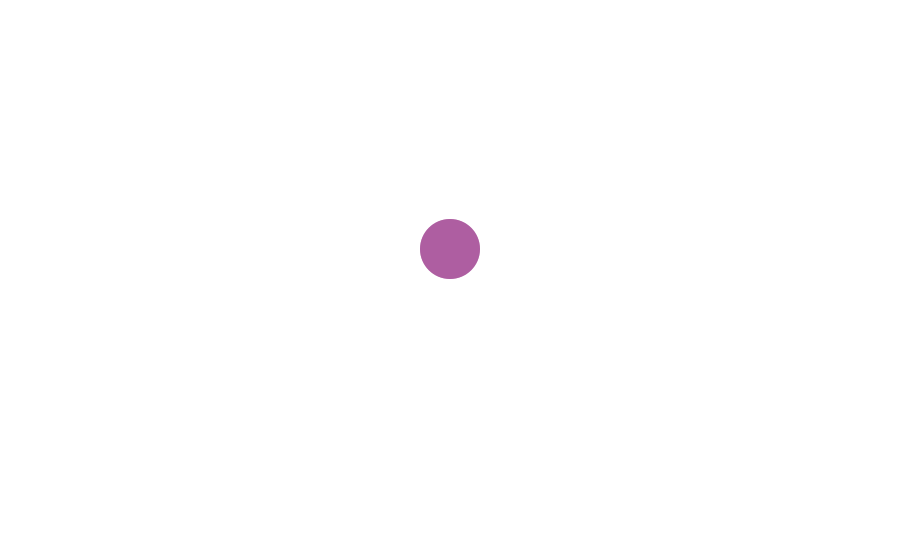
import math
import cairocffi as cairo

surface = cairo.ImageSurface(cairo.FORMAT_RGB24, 900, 557)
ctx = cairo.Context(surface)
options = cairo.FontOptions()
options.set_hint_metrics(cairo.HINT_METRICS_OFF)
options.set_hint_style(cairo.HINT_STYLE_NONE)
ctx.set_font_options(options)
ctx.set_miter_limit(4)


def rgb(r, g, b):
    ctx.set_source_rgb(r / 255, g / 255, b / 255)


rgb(255, 255, 255)
ctx.paint()
rgb(197, 140, 188)
ctx.arc(450, 249, 30, 0, 2 * math.pi)
ctx.fill()
ctx.set_source_rgba(0.62, 0.251, 0.565, 0.6)
ctx.arc(450, 249, 30, 0, 2 * math.pi)
ctx.fill()
surface.write_to_png('render.png')
